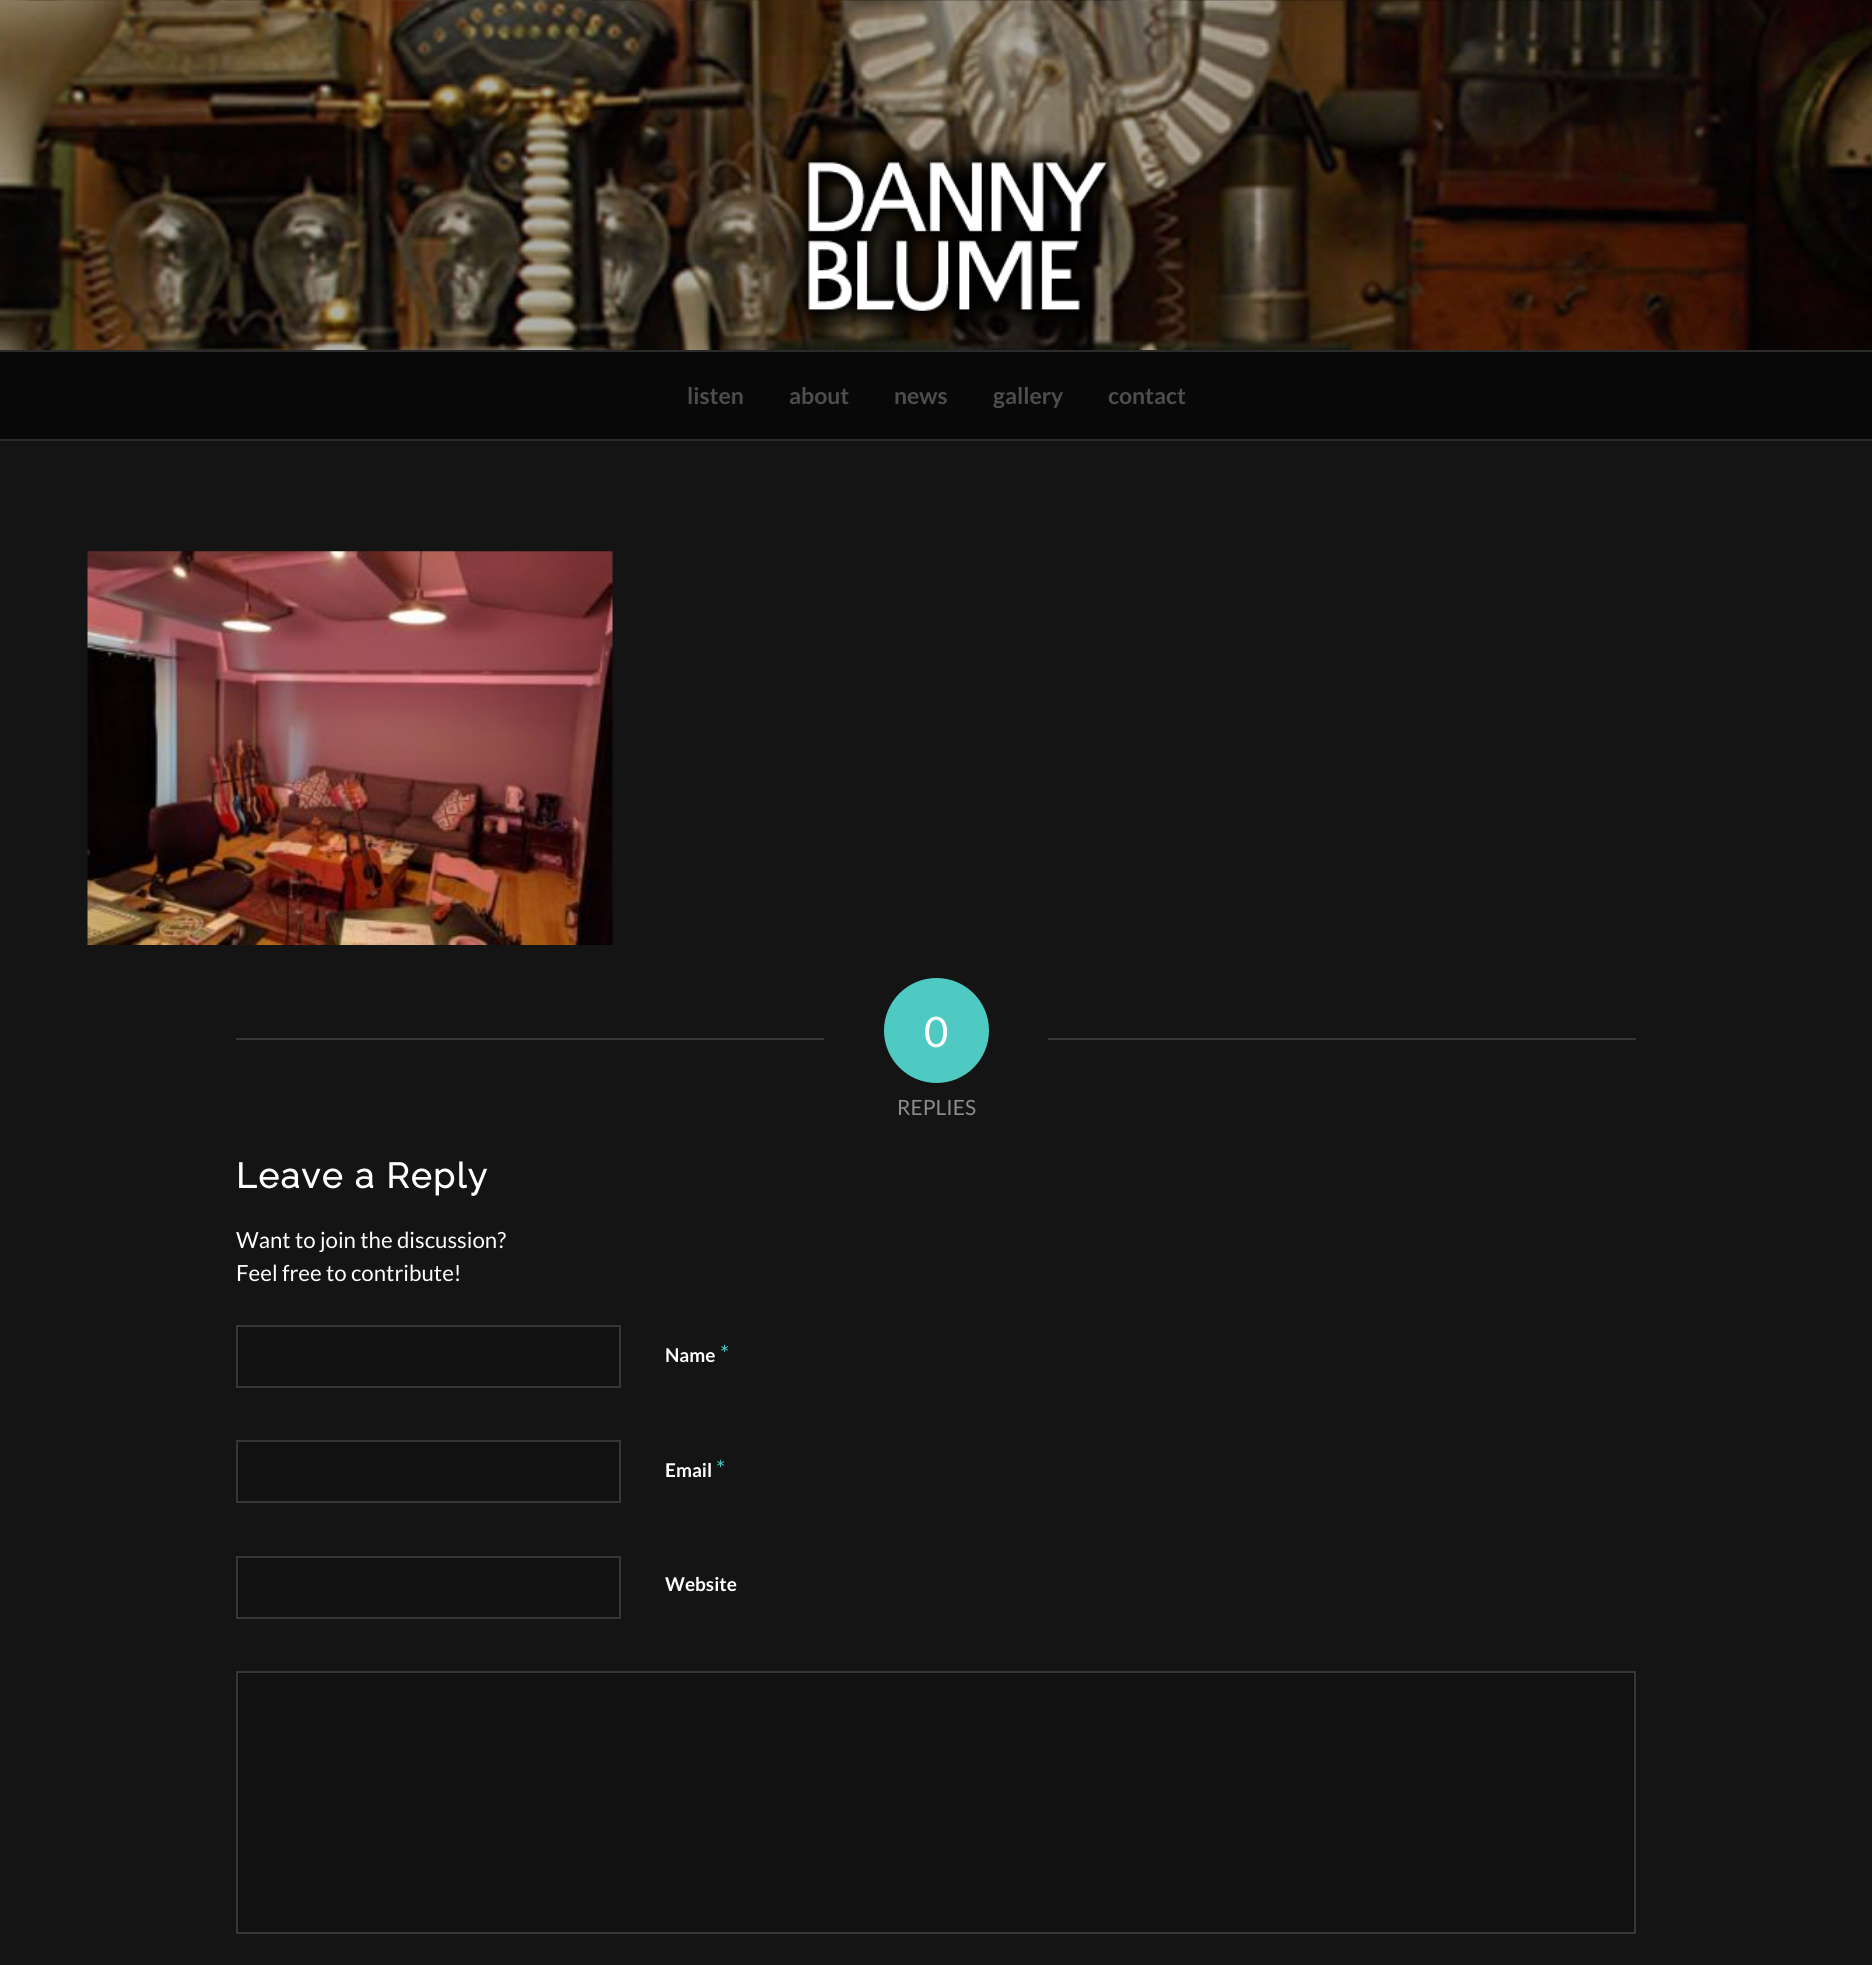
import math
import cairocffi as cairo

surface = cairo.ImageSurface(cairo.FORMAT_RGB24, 1872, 1965)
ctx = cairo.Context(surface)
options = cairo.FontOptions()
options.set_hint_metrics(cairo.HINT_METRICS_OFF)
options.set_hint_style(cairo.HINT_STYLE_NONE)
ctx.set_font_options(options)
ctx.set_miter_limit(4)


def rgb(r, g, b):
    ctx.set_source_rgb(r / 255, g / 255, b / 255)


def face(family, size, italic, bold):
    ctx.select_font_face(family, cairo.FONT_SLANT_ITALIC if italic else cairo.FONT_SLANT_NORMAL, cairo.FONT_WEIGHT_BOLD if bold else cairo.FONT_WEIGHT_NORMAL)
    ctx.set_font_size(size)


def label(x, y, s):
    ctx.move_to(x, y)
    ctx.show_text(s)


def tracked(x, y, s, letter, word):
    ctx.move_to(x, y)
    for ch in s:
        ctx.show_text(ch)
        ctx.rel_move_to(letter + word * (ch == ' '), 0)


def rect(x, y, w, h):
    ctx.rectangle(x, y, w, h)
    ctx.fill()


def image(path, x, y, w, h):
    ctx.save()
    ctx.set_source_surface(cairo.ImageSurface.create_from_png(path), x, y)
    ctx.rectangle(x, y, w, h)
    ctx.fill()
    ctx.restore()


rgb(20, 20, 20)
ctx.paint()
image('image0.png', 0, 0, 1872, 350)
rgb(43, 43, 43)
rect(0, 439, 1872, 2)
image('image1.png', 787, 141, 338, 189)
rgb(8, 8, 8)
rect(0, 352, 1872, 87)
rgb(43, 43, 43)
rect(0, 350, 1872, 2)
face('Lato', 23, 0, 1)
rgb(77, 77, 77)
label(687, 404, 'listen')
label(789, 404, 'about')
label(894, 404, 'news')
label(993, 404, 'gallery')
label(1108, 404, 'contact')
image('image2.png', 87, 551, 526, 394)
rgb(54, 54, 54)
rect(236, 1038, 588, 2)
rgb(78, 202, 194)
ctx.arc(936.5, 1030.5, 52.5, 0, 2 * math.pi)
ctx.fill()
face('Lato', 42, 0, 0)
rgb(255, 255, 255)
label(924, 1047, '0')
rgb(54, 54, 54)
rect(1048, 1038, 588, 2)
face('Lato', 21, 0, 0)
rgb(140, 140, 140)
label(897, 1115, 'REPLIES')
face('Raleway', 35, 0, 1)
rgb(255, 255, 255)
tracked(236, 1188, 'Leave a Reply', 1.75, 0)
face('Lato', 22.25, 0, 0)
label(236, 1248, 'Want to join the discussion?')
label(236, 1281, 'Feel free to contribute!')
rgb(17, 17, 17)
ctx.rectangle(237, 1326, 383, 61)
ctx.fill_preserve()
rgb(54, 54, 54)
ctx.stroke()
face('Lato', 19, 0, 1)
rgb(255, 255, 255)
label(665, 1362, 'Name')
face('Lato', 23, 0, 0)
rgb(78, 202, 194)
label(720, 1362, '*')
rgb(17, 17, 17)
ctx.rectangle(237, 1441, 383, 61)
ctx.fill_preserve()
rgb(54, 54, 54)
ctx.stroke()
face('Lato', 19, 0, 1)
rgb(255, 255, 255)
label(665, 1477, 'Email')
face('Lato', 23, 0, 0)
rgb(78, 202, 194)
label(716, 1477, '*')
rgb(17, 17, 17)
ctx.rectangle(237, 1557, 383, 61)
ctx.fill_preserve()
rgb(54, 54, 54)
ctx.stroke()
face('Lato', 19, 0, 1)
rgb(255, 255, 255)
label(665, 1591, 'Website')
rgb(17, 17, 17)
ctx.rectangle(237, 1672, 1398, 261)
ctx.fill_preserve()
rgb(54, 54, 54)
ctx.stroke()
surface.write_to_png('render.png')
